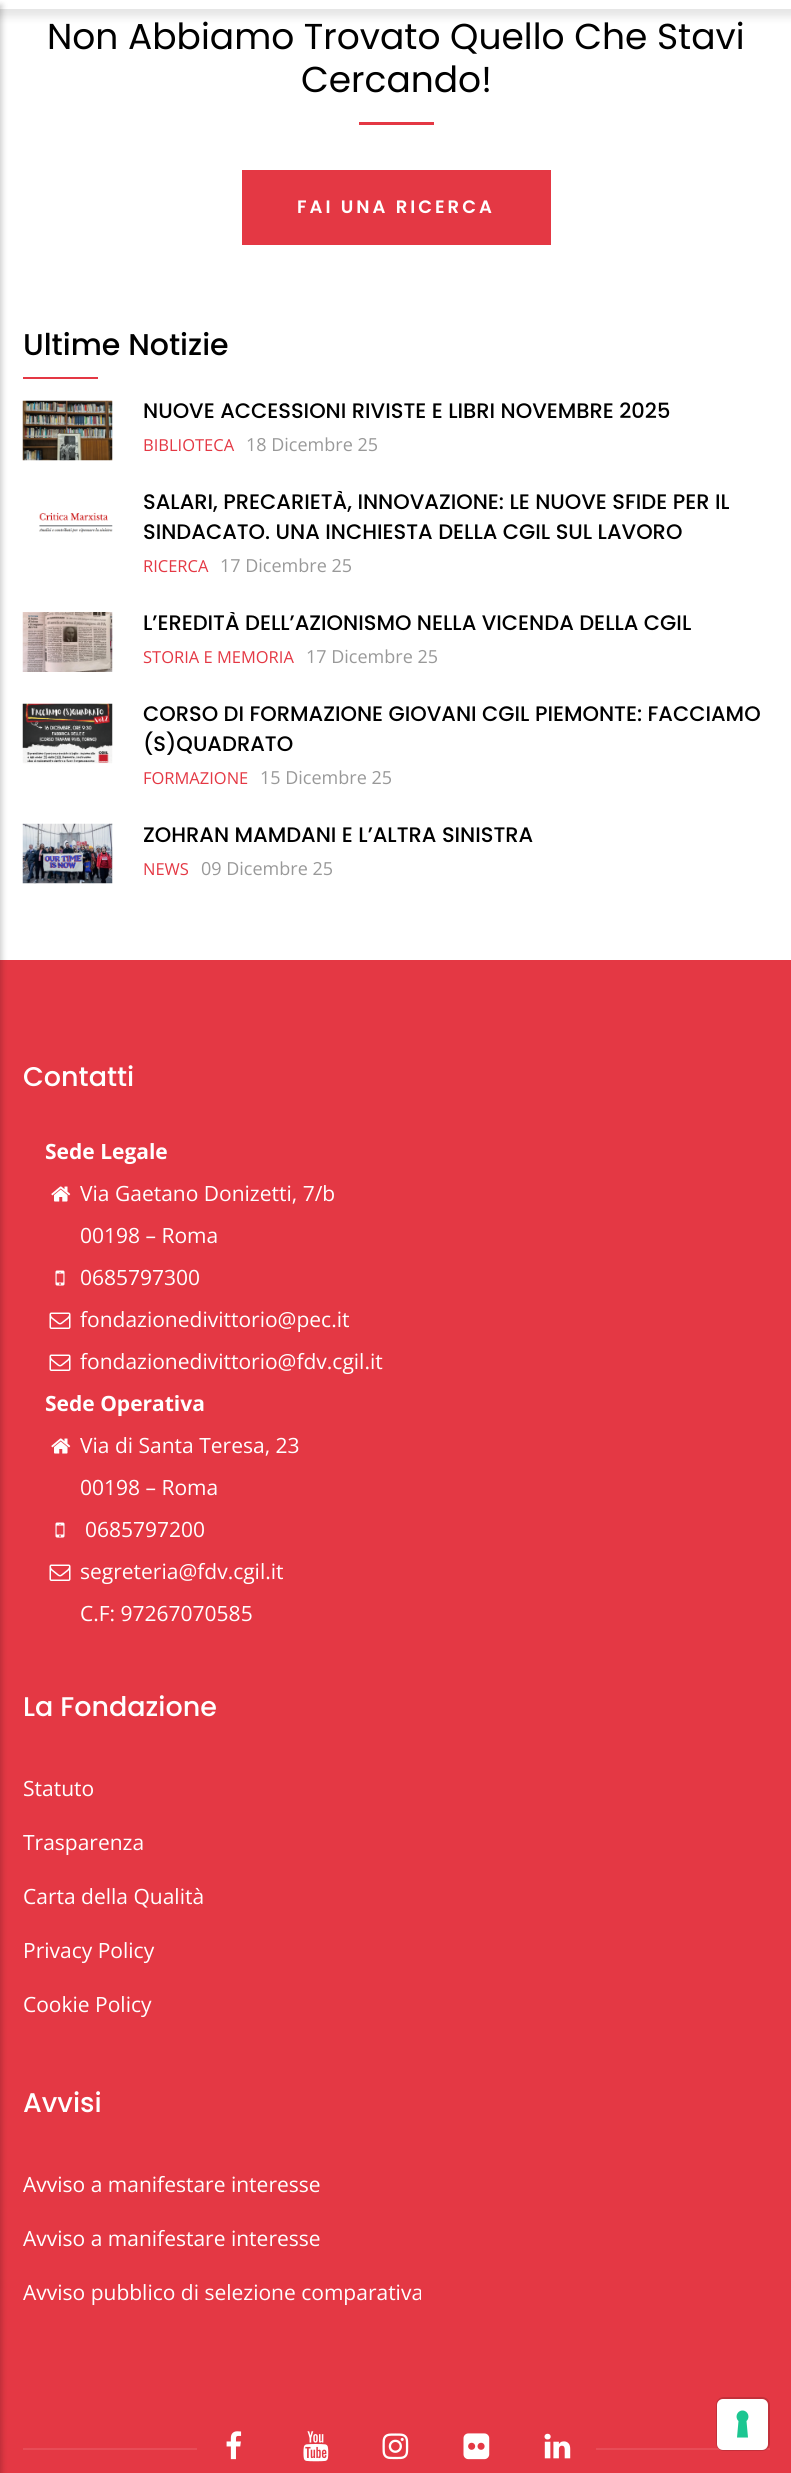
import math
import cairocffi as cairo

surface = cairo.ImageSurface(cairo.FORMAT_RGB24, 791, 2473)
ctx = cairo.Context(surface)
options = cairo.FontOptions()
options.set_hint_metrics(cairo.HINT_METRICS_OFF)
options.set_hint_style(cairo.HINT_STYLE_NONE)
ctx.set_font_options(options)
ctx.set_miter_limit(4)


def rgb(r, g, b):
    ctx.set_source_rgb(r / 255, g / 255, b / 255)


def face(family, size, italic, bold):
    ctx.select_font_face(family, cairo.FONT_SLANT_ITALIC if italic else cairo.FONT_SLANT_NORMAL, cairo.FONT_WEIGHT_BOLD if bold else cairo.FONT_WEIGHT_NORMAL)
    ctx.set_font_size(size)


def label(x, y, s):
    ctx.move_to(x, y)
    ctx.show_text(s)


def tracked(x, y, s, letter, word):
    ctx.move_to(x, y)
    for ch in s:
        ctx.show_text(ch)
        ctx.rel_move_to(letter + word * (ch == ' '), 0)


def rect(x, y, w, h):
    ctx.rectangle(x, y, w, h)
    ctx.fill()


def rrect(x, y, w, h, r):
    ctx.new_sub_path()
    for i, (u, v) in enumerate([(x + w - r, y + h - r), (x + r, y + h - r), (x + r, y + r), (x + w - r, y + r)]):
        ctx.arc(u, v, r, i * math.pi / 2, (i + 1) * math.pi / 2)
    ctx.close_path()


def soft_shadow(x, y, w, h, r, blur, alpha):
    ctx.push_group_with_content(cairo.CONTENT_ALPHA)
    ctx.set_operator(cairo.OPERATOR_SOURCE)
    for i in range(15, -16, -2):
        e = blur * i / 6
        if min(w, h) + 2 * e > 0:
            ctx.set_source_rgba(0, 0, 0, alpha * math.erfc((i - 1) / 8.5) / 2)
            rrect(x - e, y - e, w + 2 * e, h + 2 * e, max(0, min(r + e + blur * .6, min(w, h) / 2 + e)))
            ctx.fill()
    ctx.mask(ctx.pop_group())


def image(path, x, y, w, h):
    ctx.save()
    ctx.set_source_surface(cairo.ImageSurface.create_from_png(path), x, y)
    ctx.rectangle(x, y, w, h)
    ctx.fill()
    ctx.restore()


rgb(255, 255, 255)
ctx.paint()
rgb(0, 0, 0)
soft_shadow(-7, -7, 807, 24, 0, 4, 0.1)
rgb(255, 255, 255)
rect(0, 0, 791, 9)
rgb(228, 56, 68)
rect(0, 960, 791, 1513)
rgb(0, 0, 0)
soft_shadow(-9, 5, 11, 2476, 0, 3, 0.2)
face('Poppins', 36, 0, 0)
rgb(0, 0, 0)
label(47, 49, 'Non Abbiamo Trovato Quello Che Stavi')
label(301, 92, 'Cercando!')
rgb(228, 56, 68)
rect(359, 122, 75, 3)
rect(242, 170, 309, 75)
face('Poppins SemiBold', 18, 0, 0)
rgb(255, 255, 255)
tracked(297, 213, 'FAI UNA RICERCA', 3, 0)
face('Poppins Medium', 30, 0, 0)
rgb(0, 0, 0)
label(23, 355, 'Ultime Notizie')
rgb(228, 56, 68)
rect(23, 377, 75, 2)
image('image0.png', 22, 400, 91, 61)
face('Poppins Medium', 21, 0, 0)
rgb(0, 0, 0)
label(143, 418, 'NUOVE ACCESSIONI RIVISTE E LIBRI NOVEMBRE 2025')
face('Open Sans', 16.5, 0, 0)
rgb(228, 56, 68)
label(143, 451, 'BIBLIOTECA')
face('Open Sans', 18, 0, 0)
rgb(153, 153, 153)
label(246, 451, '18 Dicembre 25')
image('image1.png', 39, 512, 74, 21)
ctx.save()
ctx.rectangle(23, 491, 747, 91)
ctx.clip()
face('Poppins Medium', 21, 0, 0)
rgb(0, 0, 0)
label(143, 509, 'SALARI, PRECARIETÀ, INNOVAZIONE: LE NUOVE SFIDE PER IL')
ctx.restore()
face('Poppins Medium', 21, 0, 0)
rgb(0, 0, 0)
label(143, 539, 'SINDACATO. UNA INCHIESTA DELLA CGIL SUL LAVORO')
face('Open Sans', 16.5, 0, 0)
rgb(228, 56, 68)
label(143, 572, 'RICERCA')
face('Open Sans', 18, 0, 0)
rgb(153, 153, 153)
label(220, 572, '17 Dicembre 25')
image('image2.png', 22, 612, 91, 60)
ctx.save()
ctx.rectangle(23, 612, 747, 62)
ctx.clip()
face('Poppins Medium', 21, 0, 0)
rgb(0, 0, 0)
label(143, 630, 'L’EREDITÀ DELL’AZIONISMO NELLA VICENDA DELLA CGIL')
ctx.restore()
face('Open Sans', 16.5, 0, 0)
rgb(228, 56, 68)
label(143, 663, 'STORIA E MEMORIA')
face('Open Sans', 18, 0, 0)
rgb(153, 153, 153)
label(306, 663, '17 Dicembre 25')
image('image3.png', 22, 703, 91, 61)
face('Poppins Medium', 21, 0, 0)
rgb(0, 0, 0)
label(143, 721, 'CORSO DI FORMAZIONE GIOVANI CGIL PIEMONTE: FACCIAMO')
label(143, 751, '(S)QUADRATO')
face('Open Sans', 16.5, 0, 0)
rgb(228, 56, 68)
label(143, 784, 'FORMAZIONE')
face('Open Sans', 18, 0, 0)
rgb(153, 153, 153)
label(260, 784, '15 Dicembre 25')
image('image4.png', 22, 823, 91, 61)
face('Poppins Medium', 21, 0, 0)
rgb(0, 0, 0)
label(143, 842, 'ZOHRAN MAMDANI E L’ALTRA SINISTRA')
face('Open Sans', 16.5, 0, 0)
rgb(228, 56, 68)
label(143, 875, 'NEWS')
face('Open Sans', 18, 0, 0)
rgb(153, 153, 153)
label(201, 875, '09 Dicembre 25')
face('Poppins Medium', 27, 0, 0)
rgb(255, 255, 255)
label(23, 1086, 'Contatti')
face('Open Sans', 21, 0, 1)
label(45, 1159, 'Sede Legale')
image('image5.png', 51, 1186, 20, 16)
face('Open Sans', 21, 0, 0)
label(80, 1201, 'Via Gaetano Donizetti, 7/b')
label(80, 1243, '00198 – Roma')
image('image6.png', 55, 1270, 10, 16)
label(80, 1285, '0685797300')
image('image7.png', 49, 1312, 22, 17)
label(80, 1327, 'fondazionedivittorio@pec.it')
image('image7.png', 49, 1354, 22, 17)
label(80, 1369, 'fondazionedivittorio@fdv.cgil.it')
face('Open Sans', 21, 0, 1)
label(45, 1411, 'Sede Operativa')
image('image5.png', 51, 1438, 20, 16)
face('Open Sans', 21, 0, 0)
label(80, 1453, 'Via di Santa Teresa, 23')
label(80, 1495, '00198 – Roma')
image('image6.png', 55, 1522, 10, 16)
label(85, 1537, '0685797200')
image('image7.png', 49, 1564, 22, 17)
label(80, 1579, 'segreteria@fdv.cgil.it')
label(80, 1621, 'C.F: 97267070585')
face('Poppins Medium', 27, 0, 0)
label(23, 1716, 'La Fondazione')
face('Open Sans', 21, 0, 0)
label(23, 1796, 'Statuto')
label(23, 1850, 'Trasparenza')
label(23, 1904, 'Carta della Qualità')
label(23, 1958, 'Privacy Policy')
label(23, 2012, 'Cookie Policy')
face('Poppins Medium', 27, 0, 0)
label(23, 2112, 'Avvisi')
face('Open Sans', 21, 0, 0)
label(23, 2192, 'Avviso a manifestare interesse')
label(23, 2246, 'Avviso a manifestare interesse')
label(23, 2300, 'Avviso pubblico di selezione comparativa')
rgb(231, 76, 87)
rect(23, 2448, 174, 2)
image('image8.png', 226, 2431, 16, 29)
image('image9.png', 303, 2431, 26, 31)
image('image10.png', 382, 2433, 27, 27)
image('image11.png', 463, 2433, 27, 27)
image('image12.png', 544, 2433, 27, 26)
rect(596, 2448, 174, 2)
rrect(717, 2398, 52, 52, 7)
ctx.set_source_rgba(0, 0, 0, 0.15)
ctx.stroke()
rgb(255, 255, 255)
rrect(717, 2399, 51, 51, 6)
ctx.fill()
rgb(28, 198, 145)
ctx.set_fill_rule(cairo.FILL_RULE_EVEN_ODD)
ctx.new_path()
ctx.move_to(742.5, 2410.5)
ctx.curve_to(748, 2410.5, 750.5, 2417.5, 746.5, 2421)
ctx.line_to(748, 2437.5)
ctx.line_to(737, 2437.5)
ctx.line_to(738.5, 2421)
ctx.curve_to(734.5, 2417.5, 737, 2410.5, 742.5, 2410.5)
ctx.close_path()
ctx.fill()
surface.write_to_png('render.png')
